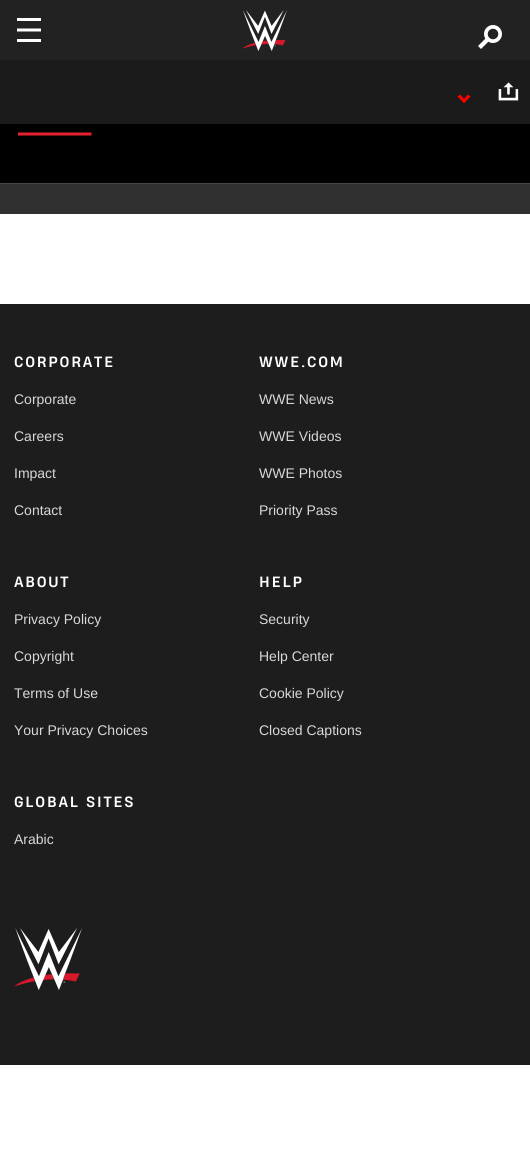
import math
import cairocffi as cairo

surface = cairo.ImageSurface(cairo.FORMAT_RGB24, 530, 1171)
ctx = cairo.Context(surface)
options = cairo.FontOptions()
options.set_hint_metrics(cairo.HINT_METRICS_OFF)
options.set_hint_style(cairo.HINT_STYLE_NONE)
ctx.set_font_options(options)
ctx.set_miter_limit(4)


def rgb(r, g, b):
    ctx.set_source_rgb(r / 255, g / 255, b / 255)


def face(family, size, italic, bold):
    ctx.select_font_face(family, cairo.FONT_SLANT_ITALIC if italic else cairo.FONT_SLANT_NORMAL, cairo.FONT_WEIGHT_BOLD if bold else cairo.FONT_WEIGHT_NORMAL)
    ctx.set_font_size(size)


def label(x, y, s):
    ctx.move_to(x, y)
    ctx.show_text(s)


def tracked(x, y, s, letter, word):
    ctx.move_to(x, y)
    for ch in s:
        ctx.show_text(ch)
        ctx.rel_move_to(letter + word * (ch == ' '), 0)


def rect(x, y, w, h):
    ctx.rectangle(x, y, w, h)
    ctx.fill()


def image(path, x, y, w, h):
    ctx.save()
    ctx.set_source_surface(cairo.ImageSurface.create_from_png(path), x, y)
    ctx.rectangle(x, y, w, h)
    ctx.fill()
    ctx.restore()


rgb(255, 255, 255)
ctx.paint()
rgb(34, 34, 34)
rect(0, 0, 530, 60)
image('image0.png', 17, 18, 24, 24)
image('image1.png', 242, 10, 45, 41)
image('image2.png', 478, 25, 24, 24)
rgb(48, 48, 48)
rect(0, 184, 530, 30)
rgb(27, 27, 27)
rect(0, 60, 530, 64)
rgb(255, 0, 0)
ctx.new_path()
ctx.move_to(468, 94.5)
ctx.line_to(470.5, 96.5)
ctx.line_to(464, 103)
ctx.line_to(462, 101)
ctx.close_path()
ctx.fill()
ctx.new_path()
ctx.move_to(460, 94.5)
ctx.line_to(466, 101)
ctx.line_to(464, 103)
ctx.line_to(457.5, 96.5)
ctx.close_path()
ctx.fill()
image('image3.png', 498, 82, 21, 19)
rgb(0, 0, 0)
rect(0, 124, 530, 59)
rgb(71, 71, 71)
rect(0, 183, 530, 1)
ctx.save()
ctx.rectangle(18, 131, 90, 5)
ctx.clip()
ctx.new_path()
ctx.move_to(1.5, 134)
ctx.line_to(91.5, 134)
rgb(231, 32, 47)
ctx.set_line_width(3)
ctx.stroke()
ctx.restore()
rgb(29, 29, 29)
rect(0, 304, 530, 761)
face('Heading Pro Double', 14, 0, 1)
rgb(255, 255, 255)
tracked(14, 367, 'CORPORATE', 1.75, 0)
face('Liberation Sans', 14, 0, 0)
rgb(216, 216, 216)
label(14, 404, 'Corporate')
label(14, 441, 'Careers')
label(14, 478, 'Impact')
label(14, 515, 'Contact')
face('Heading Pro Double', 14, 0, 1)
rgb(255, 255, 255)
tracked(259, 367, 'WWE.COM', 1.75, 0)
face('Liberation Sans', 14, 0, 0)
rgb(216, 216, 216)
label(259, 404, 'WWE News')
label(259, 441, 'WWE Videos')
label(259, 478, 'WWE Photos')
label(259, 515, 'Priority Pass')
face('Heading Pro Double', 14, 0, 1)
rgb(255, 255, 255)
tracked(14, 587, 'ABOUT', 1.75, 0)
face('Liberation Sans', 14, 0, 0)
rgb(216, 216, 216)
label(14, 624, 'Privacy Policy')
label(14, 661, 'Copyright')
label(14, 698, 'Terms of Use')
label(14, 735, 'Your Privacy Choices')
face('Heading Pro Double', 14, 0, 1)
rgb(255, 255, 255)
tracked(259, 587, 'HELP', 1.75, 0)
face('Liberation Sans', 14, 0, 0)
rgb(216, 216, 216)
label(259, 624, 'Security')
label(259, 661, 'Help Center')
label(259, 698, 'Cookie Policy')
label(259, 735, 'Closed Captions')
face('Heading Pro Double', 14, 0, 1)
rgb(255, 255, 255)
tracked(14, 807, 'GLOBAL SITES', 1.75, 0)
face('Liberation Sans', 14, 0, 0)
rgb(216, 216, 216)
label(14, 844, 'Arabic')
image('image4.png', 14, 928, 68, 62)
surface.write_to_png('render.png')
